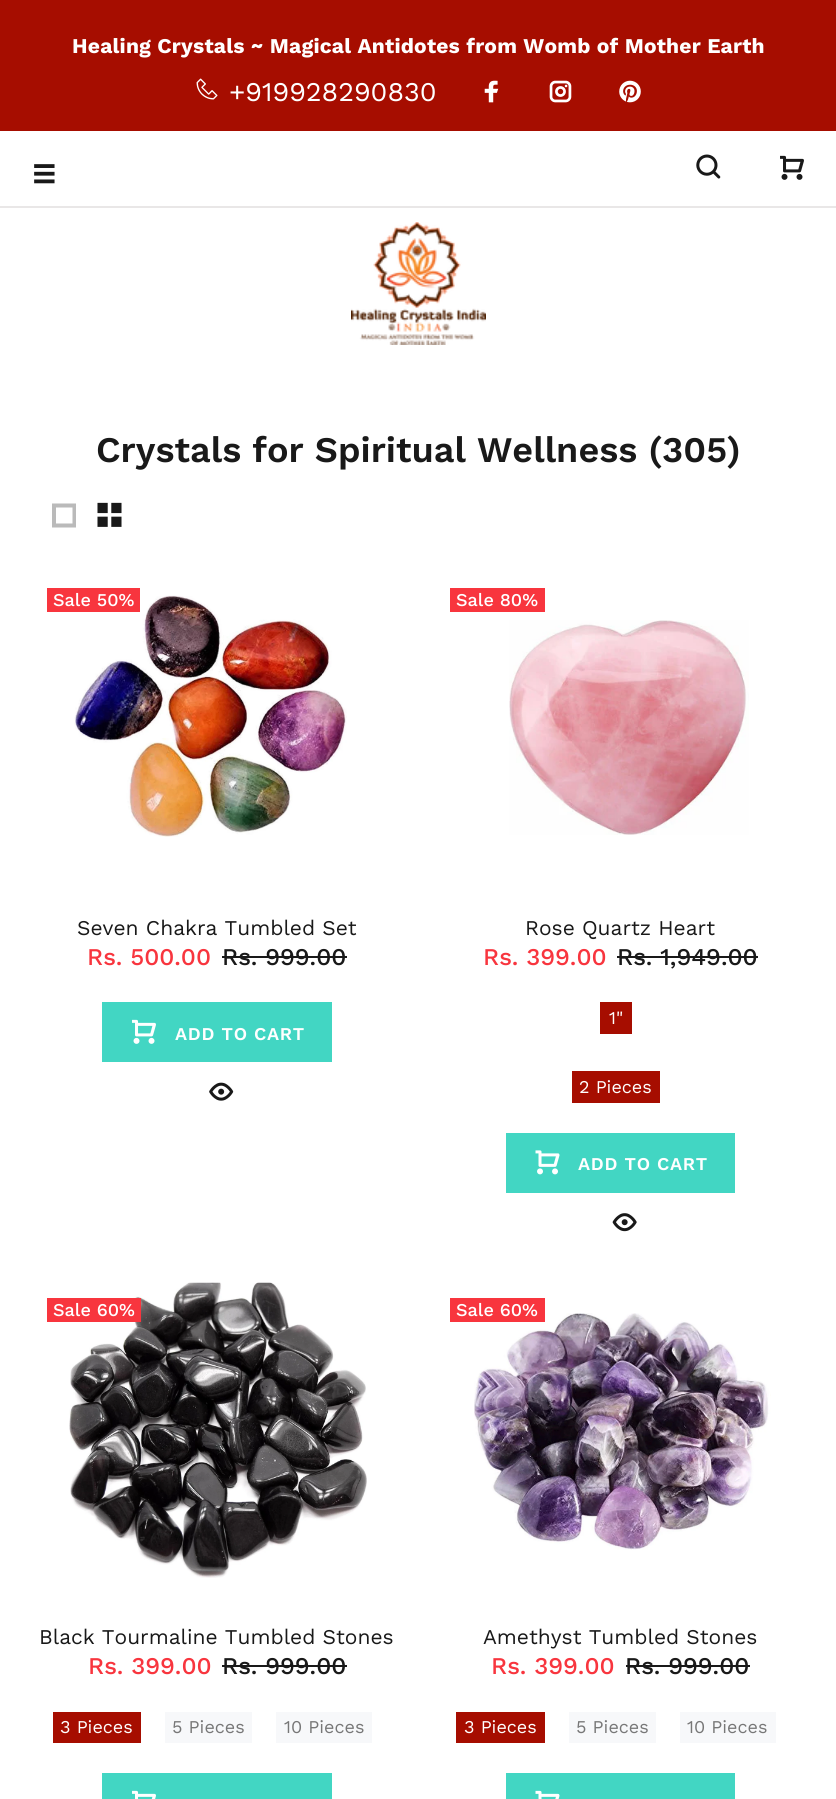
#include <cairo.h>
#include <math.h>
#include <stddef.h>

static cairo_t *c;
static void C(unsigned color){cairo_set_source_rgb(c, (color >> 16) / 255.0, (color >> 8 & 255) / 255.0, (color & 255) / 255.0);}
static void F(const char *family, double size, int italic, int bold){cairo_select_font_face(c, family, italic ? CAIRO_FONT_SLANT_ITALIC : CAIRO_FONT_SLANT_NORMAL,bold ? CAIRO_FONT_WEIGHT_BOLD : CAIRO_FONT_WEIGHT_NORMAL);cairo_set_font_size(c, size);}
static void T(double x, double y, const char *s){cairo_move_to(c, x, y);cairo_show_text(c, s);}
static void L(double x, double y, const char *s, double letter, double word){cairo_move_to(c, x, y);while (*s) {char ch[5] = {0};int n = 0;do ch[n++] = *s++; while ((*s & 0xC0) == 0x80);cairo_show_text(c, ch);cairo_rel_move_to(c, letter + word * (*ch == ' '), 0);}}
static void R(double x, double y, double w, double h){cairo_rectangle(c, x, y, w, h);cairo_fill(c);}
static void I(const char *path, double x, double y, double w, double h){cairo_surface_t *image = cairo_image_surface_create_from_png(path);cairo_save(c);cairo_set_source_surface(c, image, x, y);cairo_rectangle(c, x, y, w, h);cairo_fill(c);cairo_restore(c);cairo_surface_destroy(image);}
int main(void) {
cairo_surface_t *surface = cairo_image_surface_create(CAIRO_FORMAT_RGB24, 836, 1799);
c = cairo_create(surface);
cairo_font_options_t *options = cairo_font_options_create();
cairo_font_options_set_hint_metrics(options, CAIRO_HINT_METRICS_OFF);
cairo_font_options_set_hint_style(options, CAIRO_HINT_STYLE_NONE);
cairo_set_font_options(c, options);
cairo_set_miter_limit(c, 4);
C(0xffffff);
cairo_paint(c);
C(0xa60d00);
R(0,0,836,131);
F("Work Sans",21,0,1);
C(0xffffff);
L(72,53,"Healing Crystals ~ Magical Antidotes from Womb of Mother Earth",.2,0);
I("1.png",196,78,22,22);
F("Work Sans",27,0,0);
T(229,101,"+919928290830");
I("2.png",484,80,15,23);
I("3.png",549,80,23,23);
I("4.png",619,80,22,23);
I("5.png",34,164,21,20);
I("6.png",696,154,25,25);
I("7.png",780,155,24,25);
C(0xe9e7e7);
R(0,206,836,2);
I("8.png",351,222,135,123);
F("Work Sans SemiBold",36,0,0);
C(0x191919);
T(96,462,"Crystals for Spiritual Wellness (305)");
C(0xbababa);
cairo_new_path(c);
cairo_move_to(c,52,527.5);
cairo_line_to(c,52,503.5);
cairo_line_to(c,76,503.5);
cairo_line_to(c,76,527.5);
cairo_close_path(c);
cairo_move_to(c,56,523.5);
cairo_line_to(c,72.5,523.5);
cairo_line_to(c,72.5,507.5);
cairo_line_to(c,56,507.5);
cairo_close_path(c);
cairo_fill(c);
I("9.png",97,502,25,25);
I("10.png",74,595,273,242);
C(0xf8353e);
R(47,588,93,24);
F("Work Sans Medium",18,0,0);
C(0xffffff);
T(53,606,"Sale 50%");
F("Work Sans",21,0,0);
C(0x191919);
T(77,935,"Seven Chakra Tumbled Set");
F("Work Sans Medium",24,0,0);
C(0xf8353e);
T(87,965,"Rs. 500.00");
C(0x191919);
T(222,965,"Rs. 999.00");
R(222,956,125,2);
C(0x42d6c3);
R(102,1002,230,60);
I("11.png",132,1019,24,25);
F("Work Sans SemiBold",18,0,0);
C(0xffffff);
L(175,1040,"ADD TO CART",.75,0);
I("12.png",209,1082,25,19);
C(0xf8353e);
R(450,588,95,24);
F("Work Sans Medium",18,0,0);
C(0xffffff);
T(456,606,"Sale 80%");
I("13.png",509,620,240,215);
F("Work Sans",21,0,0);
C(0x191919);
T(525,935,"Rose Quartz Heart");
F("Work Sans Medium",24,0,0);
C(0xf8353e);
T(483,965,"Rs. 399.00");
C(0x191919);
T(617,965,"Rs. 1,949.00");
R(617,956,141,2);
C(0xa60d00);
R(600,1002,32,32);
F("Work Sans",18,0,0);
C(0xffffff);
T(609,1024,"1\"");
C(0xa60d00);
R(572,1071,88,32);
C(0xffffff);
T(579,1093,"2 Pieces");
C(0x42d6c3);
R(506,1133,229,60);
I("14.png",535,1150,25,25);
F("Work Sans SemiBold",18,0,0);
C(0xffffff);
L(578,1170,"ADD TO CART",.75,0);
I("15.png",612,1213,25,19);
I("16.png",69,1282,298,296);
C(0xf8353e);
R(47,1298,94,24);
F("Work Sans Medium",18,0,0);
C(0xffffff);
T(53,1316,"Sale 60%");
F("Work Sans",21,0,0);
C(0x191919);
T(39,1644,"Black Tourmaline Tumbled Stones");
F("Work Sans Medium",24,0,0);
C(0xf8353e);
T(88,1674,"Rs. 399.00");
C(0x191919);
T(222,1674,"Rs. 999.00");
R(222,1665,125,2);
C(0xa60d00);
R(53,1712,88,31);
F("Work Sans",18,0,0);
C(0xffffff);
T(60,1733,"3 Pieces");
C(0xf7f8fa);
R(165,1712,87,31);
C(0x777777);
T(172,1733,"5 Pieces");
C(0xf7f8fa);
R(276,1712,96,31);
C(0x777777);
T(284,1733,"10 Pieces");
C(0x42d6c3);
R(102,1773,230,26);
I("17.png",132,1790,24,9);
I("18.png",474,1313,297,237);
C(0xf8353e);
R(450,1298,95,24);
F("Work Sans Medium",18,0,0);
C(0xffffff);
T(456,1316,"Sale 60%");
F("Work Sans",21,0,0);
C(0x191919);
T(483,1644,"Amethyst Tumbled Stones");
F("Work Sans Medium",24,0,0);
C(0xf8353e);
T(491,1674,"Rs. 399.00");
C(0x191919);
T(625,1674,"Rs. 999.00");
R(626,1665,124,2);
C(0xa60d00);
R(456,1712,89,31);
F("Work Sans",18,0,0);
C(0xffffff);
T(464,1733,"3 Pieces");
C(0xf7f8fa);
R(569,1712,87,31);
C(0x777777);
T(576,1733,"5 Pieces");
C(0xf7f8fa);
R(680,1712,96,31);
C(0x777777);
T(687,1733,"10 Pieces");
C(0x42d6c3);
R(506,1773,229,26);
I("19.png",535,1790,25,9);
cairo_surface_write_to_png(surface, "o.png");
cairo_font_options_destroy(options);
cairo_destroy(c);
cairo_surface_destroy(surface);
return 0;
}
